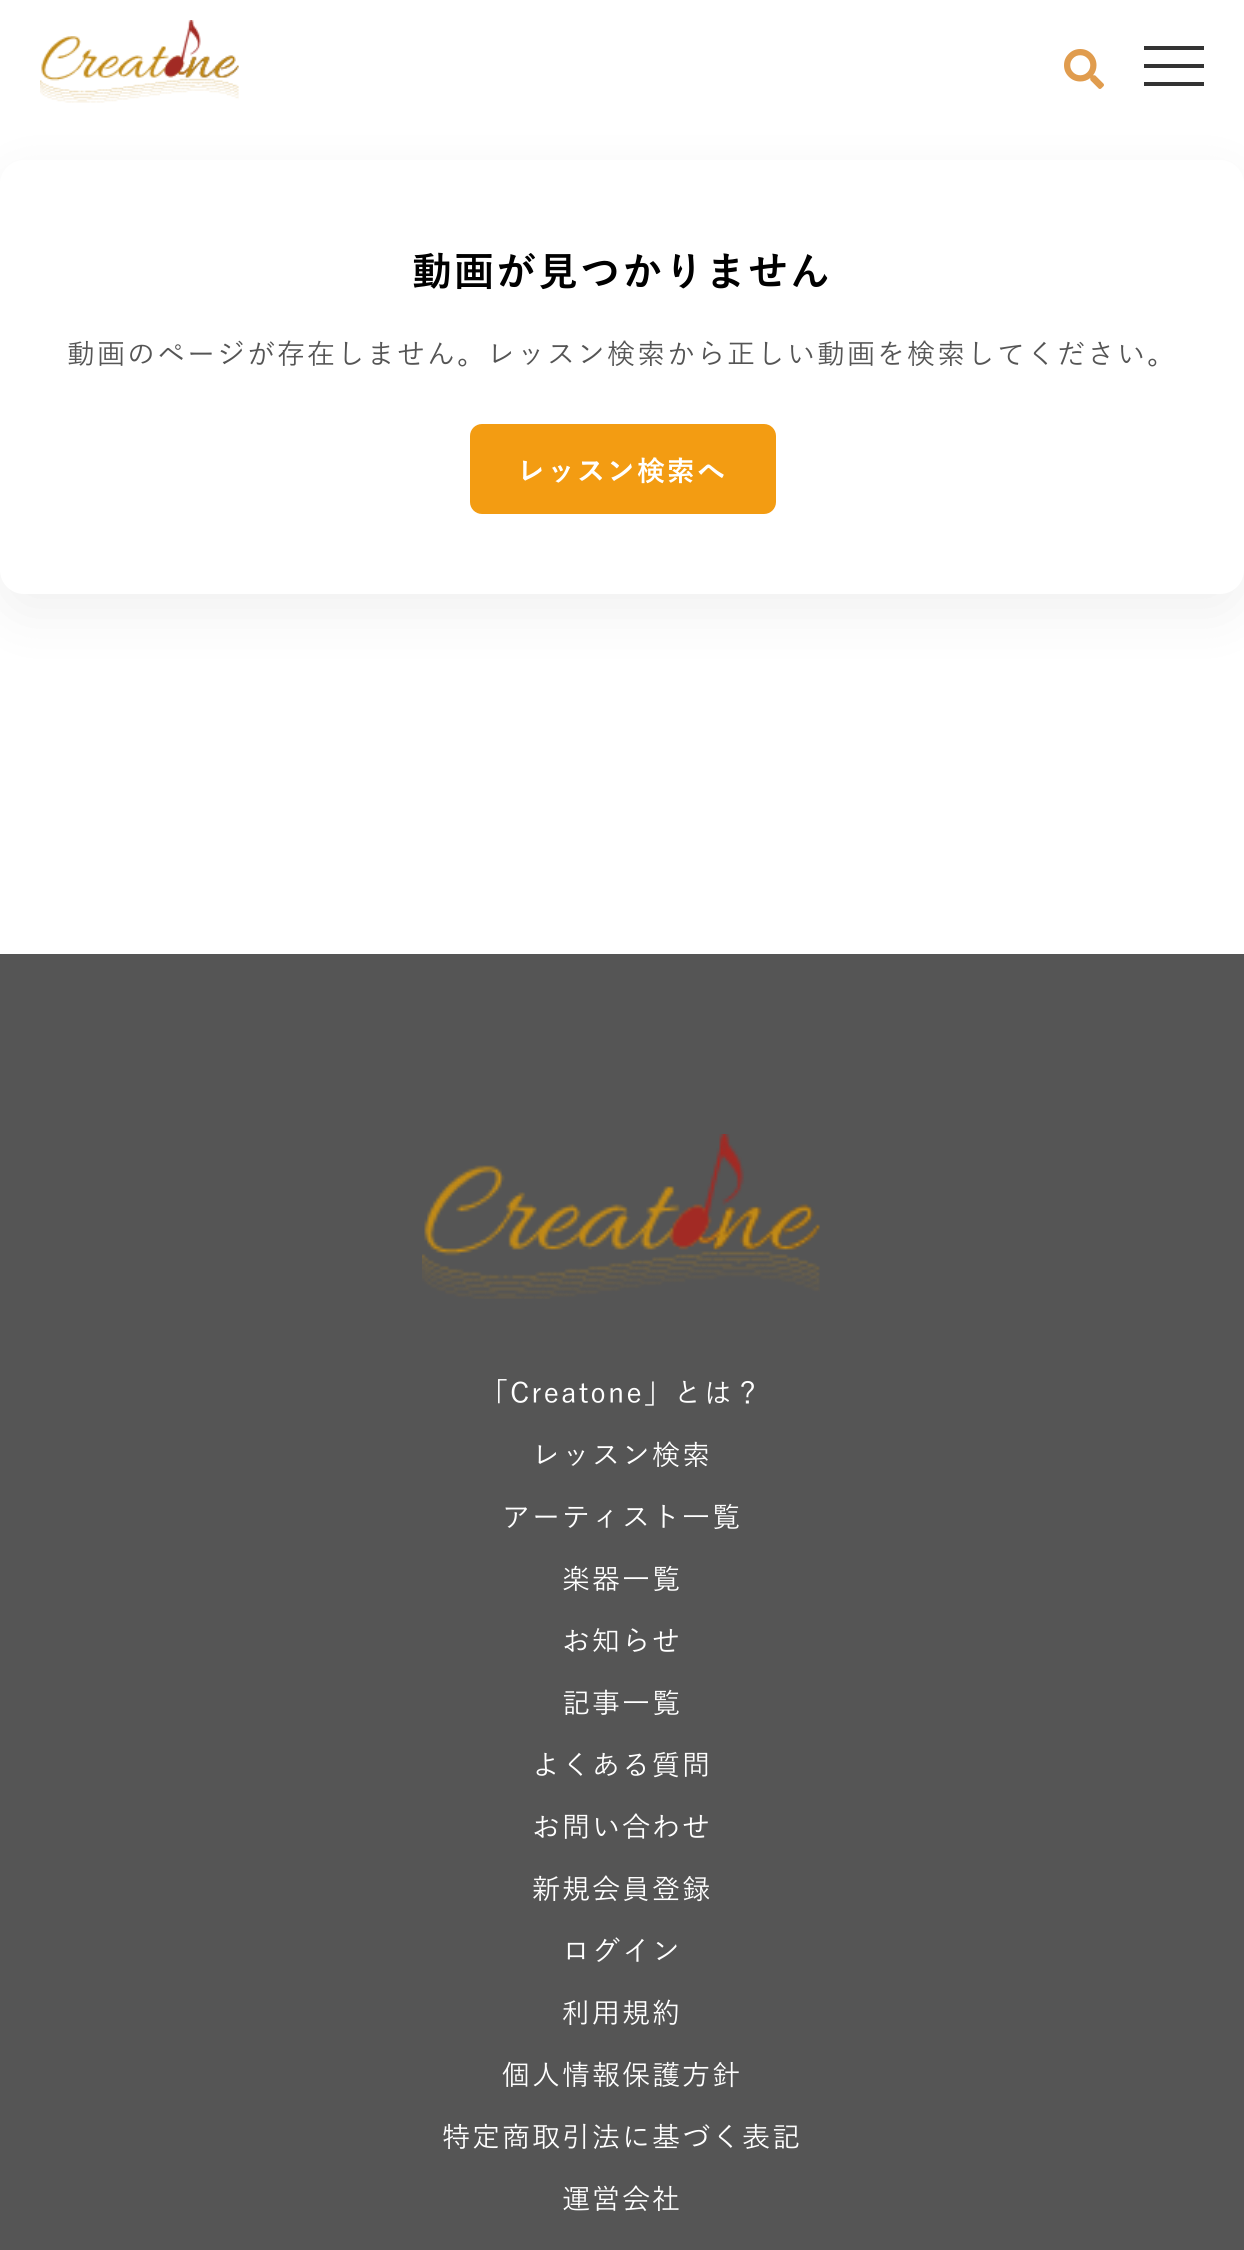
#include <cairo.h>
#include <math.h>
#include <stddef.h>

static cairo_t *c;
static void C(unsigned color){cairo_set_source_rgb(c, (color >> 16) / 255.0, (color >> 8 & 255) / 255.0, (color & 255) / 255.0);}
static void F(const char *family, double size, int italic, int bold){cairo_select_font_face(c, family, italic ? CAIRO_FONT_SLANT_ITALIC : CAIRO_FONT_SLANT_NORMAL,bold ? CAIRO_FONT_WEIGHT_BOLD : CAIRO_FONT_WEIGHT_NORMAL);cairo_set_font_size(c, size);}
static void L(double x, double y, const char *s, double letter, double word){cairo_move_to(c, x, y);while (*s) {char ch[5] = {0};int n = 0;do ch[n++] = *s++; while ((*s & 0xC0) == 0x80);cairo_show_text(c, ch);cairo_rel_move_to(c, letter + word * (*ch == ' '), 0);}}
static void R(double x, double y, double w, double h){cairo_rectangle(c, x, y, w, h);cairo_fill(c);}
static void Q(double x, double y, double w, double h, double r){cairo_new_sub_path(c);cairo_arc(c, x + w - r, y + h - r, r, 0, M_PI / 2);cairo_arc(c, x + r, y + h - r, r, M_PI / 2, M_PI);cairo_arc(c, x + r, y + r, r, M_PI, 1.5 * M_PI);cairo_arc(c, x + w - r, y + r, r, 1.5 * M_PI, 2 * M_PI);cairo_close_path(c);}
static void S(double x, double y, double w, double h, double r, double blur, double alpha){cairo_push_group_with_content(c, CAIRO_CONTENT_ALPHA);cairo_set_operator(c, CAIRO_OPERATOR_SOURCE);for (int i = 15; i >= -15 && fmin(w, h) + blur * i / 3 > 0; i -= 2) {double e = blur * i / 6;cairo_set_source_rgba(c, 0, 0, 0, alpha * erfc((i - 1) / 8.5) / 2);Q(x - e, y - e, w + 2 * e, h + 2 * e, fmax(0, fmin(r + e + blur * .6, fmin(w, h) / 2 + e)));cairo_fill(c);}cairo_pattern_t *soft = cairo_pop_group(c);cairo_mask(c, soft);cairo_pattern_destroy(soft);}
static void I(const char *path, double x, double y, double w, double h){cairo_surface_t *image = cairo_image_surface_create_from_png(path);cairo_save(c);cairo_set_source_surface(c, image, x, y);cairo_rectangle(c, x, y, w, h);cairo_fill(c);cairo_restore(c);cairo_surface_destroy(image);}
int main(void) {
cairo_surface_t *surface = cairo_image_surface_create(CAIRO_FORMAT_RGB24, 1244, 2250);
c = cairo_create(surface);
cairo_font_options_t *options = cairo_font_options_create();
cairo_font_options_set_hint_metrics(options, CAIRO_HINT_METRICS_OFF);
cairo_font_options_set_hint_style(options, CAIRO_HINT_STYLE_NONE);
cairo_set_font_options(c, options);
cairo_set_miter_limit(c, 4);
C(0xffffff);
cairo_paint(c);
C(0x000000);
S(0,180,1244,434,24,30,.06);
I("1.png",40,20,199,83);
I("2.png",1064,49,40,40);
C(0x333333);
R(1144,46,60,4);
R(1144,64,60,4);
R(1144,82,60,4);
C(0xffffff);
Q(0,160,1244,434,24);
cairo_fill(c);
F("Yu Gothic",40,0,1);
C(0x000000);
L(412,286,"動画が見つかりません",2,0);
F("Yu Gothic Medium",28,0,0);
C(0x555555);
L(67,364,"動画のページが存在しません。レッスン検索から正しい動画を検索してください。",2,0);
C(0xf39c12);
Q(470,424,306,90,12);
cairo_fill(c);
F("Yu Gothic",28,0,1);
C(0xffffff);
L(517,481,"レッスン検索へ",2,0);
C(0x555555);
R(0,954,1244,1296);
I("3.png",422,1134,398,165);
F("Yu Gothic Medium",28,0,0);
C(0xffffff);
L(480,1403,"「Creatone」とは？",2,0);
L(532,1465,"レッスン検索",2,0);
L(502,1527,"アーティスト一覧",2,0);
L(562,1589,"楽器一覧",2,0);
L(562,1651,"お知らせ",2,0);
L(562,1713,"記事一覧",2,0);
L(532,1775,"よくある質問",2,0);
L(532,1837,"お問い合わせ",2,0);
L(532,1899,"新規会員登録",2,0);
L(562,1961,"ログイン",2,0);
L(562,2023,"利用規約",2,0);
L(502,2085,"個人情報保護方針",2,0);
L(442,2147,"特定商取引法に基づく表記",2,0);
L(562,2209,"運営会社",2,0);
cairo_surface_write_to_png(surface, "o.png");
cairo_font_options_destroy(options);
cairo_destroy(c);
cairo_surface_destroy(surface);
return 0;
}
